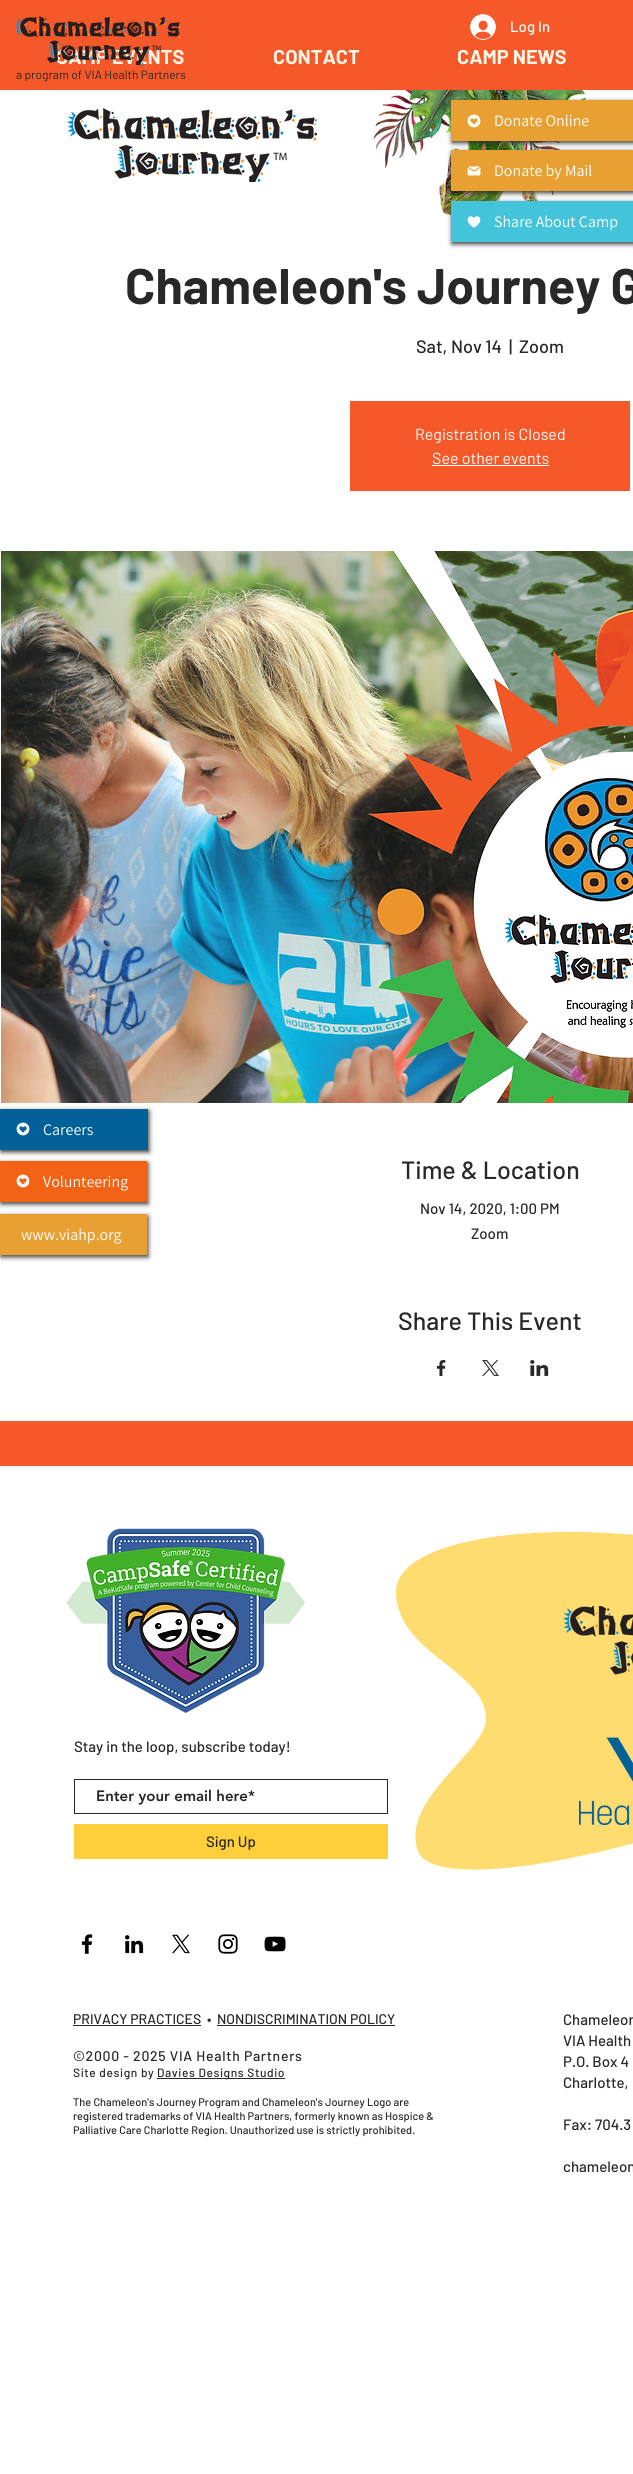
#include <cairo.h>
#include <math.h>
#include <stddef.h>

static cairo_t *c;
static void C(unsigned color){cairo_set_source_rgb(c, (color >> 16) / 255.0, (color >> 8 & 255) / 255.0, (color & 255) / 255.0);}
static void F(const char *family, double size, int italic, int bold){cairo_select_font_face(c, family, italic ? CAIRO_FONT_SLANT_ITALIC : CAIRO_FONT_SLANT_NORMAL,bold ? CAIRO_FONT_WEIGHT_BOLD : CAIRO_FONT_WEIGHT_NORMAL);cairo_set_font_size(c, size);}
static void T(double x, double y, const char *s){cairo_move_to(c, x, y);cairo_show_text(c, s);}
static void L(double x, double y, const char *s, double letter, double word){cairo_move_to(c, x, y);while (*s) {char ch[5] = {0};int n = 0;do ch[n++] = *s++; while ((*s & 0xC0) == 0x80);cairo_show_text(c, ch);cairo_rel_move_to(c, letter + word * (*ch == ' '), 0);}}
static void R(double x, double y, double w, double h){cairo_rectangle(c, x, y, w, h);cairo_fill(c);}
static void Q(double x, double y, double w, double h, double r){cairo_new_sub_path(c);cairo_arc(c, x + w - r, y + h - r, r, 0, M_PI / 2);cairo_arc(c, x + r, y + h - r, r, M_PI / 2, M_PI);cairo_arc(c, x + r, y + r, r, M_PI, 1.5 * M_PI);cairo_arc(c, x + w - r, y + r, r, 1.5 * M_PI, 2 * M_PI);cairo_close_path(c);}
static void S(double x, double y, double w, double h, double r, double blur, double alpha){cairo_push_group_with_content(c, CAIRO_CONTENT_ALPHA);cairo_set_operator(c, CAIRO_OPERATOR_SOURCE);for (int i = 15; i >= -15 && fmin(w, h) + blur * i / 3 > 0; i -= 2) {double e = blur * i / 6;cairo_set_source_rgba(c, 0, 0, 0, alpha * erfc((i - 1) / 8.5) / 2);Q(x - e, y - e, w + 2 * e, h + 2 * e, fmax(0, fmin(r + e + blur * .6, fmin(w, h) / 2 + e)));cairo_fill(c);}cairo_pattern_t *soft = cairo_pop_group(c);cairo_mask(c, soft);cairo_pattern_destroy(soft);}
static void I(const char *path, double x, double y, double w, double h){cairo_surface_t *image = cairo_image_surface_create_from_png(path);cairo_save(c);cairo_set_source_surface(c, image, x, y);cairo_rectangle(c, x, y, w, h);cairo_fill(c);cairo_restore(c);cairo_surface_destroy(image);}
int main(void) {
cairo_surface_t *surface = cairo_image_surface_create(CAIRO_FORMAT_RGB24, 633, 2474);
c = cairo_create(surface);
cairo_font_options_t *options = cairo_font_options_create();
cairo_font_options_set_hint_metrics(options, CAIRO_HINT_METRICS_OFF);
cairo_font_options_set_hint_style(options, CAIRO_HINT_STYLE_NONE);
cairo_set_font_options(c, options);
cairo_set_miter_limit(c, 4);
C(0xffffff);
cairo_paint(c);
C(0xf5592a);
R(0,0,633,90);
I("1.png",470,14,26,26);
F("Barlow Medium",15,0,0);
C(0xffffff);
T(510,32,"Log In");
I("9.png",373,90,213,126);
C(0x303131);
S(452,152,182,41,0,2.5,1);
C(0xe8a033);
R(451,150,182,41);
C(0x303131);
S(452,102,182,41,0,2.5,1);
C(0xe8a033);
R(451,100,182,41);
I("2.png",467,114,14,14);
F("Assistant",16,0,0);
C(0xffffff);
T(494,126,"Donate Online");
I("3.png",467,166,14,10);
T(494,176,"Donate by Mail");
C(0x303131);
S(452,203,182,41,0,2.5,1);
C(0x44c4db);
R(451,201,182,41);
I("4.png",467,216,14,12);
C(0xffffff);
T(494,227,"Share About Camp");
F("Barlow",20,0,1);
C(0xfff7e8);
T(56,64,"CAMP EVENTS");
T(273,64,"CONTACT");
T(457,64,"CAMP NEWS");
I("5.png",16,16,164,49);
F("Barlow",12,0,0);
C(0x282828);
T(16,79,"a program of VIA Health Partners");
I("10.png",1,551,632,552);
C(0x303131);
S(1,1111,148,41,0,2.5,1);
C(0x006098);
R(0,1109,148,41);
I("6.png",16,1122,14,14);
F("Assistant",16,0,0);
C(0xffffff);
T(43,1135,"Careers");
C(0x303131);
S(1,1163,147,41,0,2.5,1);
C(0xf26316);
R(0,1161,147,41);
I("7.png",16,1174,14,14);
C(0xffffff);
T(43,1187,"Volunteering");
C(0x303131);
S(1,1216,147,41,0,2.5,1);
C(0xe8a033);
R(0,1214,147,41);
C(0xffffff);
T(21,1240,"www.viahp.org");
I("8.png",67,108,250,74);
F("Barlow",50,0,1);
C(0x282828);
T(125,304,"Chameleon's Journey G");
F("Barlow Medium",18,0,0);
T(416,353,"Sat, Nov 14");
T(509,353,"|");
T(519,353,"Zoom");
C(0xf5592a);
R(350,401,280,90);
F("Barlow",16,0,0);
C(0xffffff);
T(415,440,"Registration is Closed");
T(432,464,"See other events");
R(432,465,117,1);
F("Barlow Medium",25,0,0);
C(0x282828);
T(401,1179,"Time & Location");
F("Barlow Medium",15,0,0);
T(420,1214,"Nov 14, 2020, 1:00 PM");
T(471,1239,"Zoom");
F("Barlow Medium",25,0,0);
T(398,1330,"Share This Event");
I("11.png",437,1360,9,16);
I("12.png",482,1360,17,16);
I("13.png",530,1360,19,16);
C(0xf5592a);
R(0,1421,633,45);
I("14.png",66,1528,240,185);
C(0xfedc70);
cairo_new_path(c);
cairo_move_to(c,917,1689);
cairo_curve_to(c,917,1782,444,1920,418,1851);
cairo_curve_to(c,399,1799,489,1750,486,1717);
cairo_curve_to(c,483,1669,398,1654,396,1593);
cairo_curve_to(c,393,1489,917,1516,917,1689);
cairo_close_path(c);
cairo_fill(c);
I("15.png",563,1606,70,69);
F("Barlow Medium",15,0,0);
C(0x282828);
T(74,1752,"Stay in the loop, subscribe today!");
cairo_rectangle(c,74.5,1779.5,313,34);
cairo_set_line_width(c,1);
cairo_stroke(c);
F("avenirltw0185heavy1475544 Black",15,0,0);
T(96,1801,"Enter your email here*");
C(0xfecf3b);
R(74,1824,314,35);
F("Barlow Medium",15,0,0);
C(0x282828);
T(206,1847,"Sign Up");
I("16.png",579,1737,54,88);
I("17.png",81,1934,12,20);
I("18.png",124,1935,20,19);
I("19.png",172,1934,18,20);
I("20.png",218,1934,20,20);
I("21.png",264,1936,22,16);
F("Barlow Medium",14,0,0);
T(73,2024,"PRIVACY PRACTICES");
R(73,2025,128,1);
T(207,2024,"•");
T(217,2024,"NONDISCRIMINATION POLICY");
R(217,2025,178,1);
L(73,2061,"©2000 - 2025 VIA Health Partners",.7,0);
F("Barlow Medium",12,0,0);
L(73,2077,"Site design by",.6,0);
R(157,2078,128,1);
L(157,2077,"Davies Designs Studio",.6,0);
F("Barlow Medium",11,0,0);
T(73,2106,"The Chameleon's Journey Program and Chameleon's Journey Logo are");
T(73,2120,"registered trademarks of VIA Health Partners, formerly known as Hospice &");
T(73,2134,"Palliative Care Charlotte Region. Unauthorized use is strictly prohibited.");
F("Barlow Medium",15,0,0);
T(563,2025,"Chameleon");
T(563,2046,"VIA Health");
T(563,2067,"P.O. Box 4");
T(563,2088,"Charlotte,");
T(563,2130,"Fax: 704.3");
T(563,2172,"chameleon");
cairo_surface_write_to_png(surface, "o.png");
cairo_font_options_destroy(options);
cairo_destroy(c);
cairo_surface_destroy(surface);
return 0;
}
